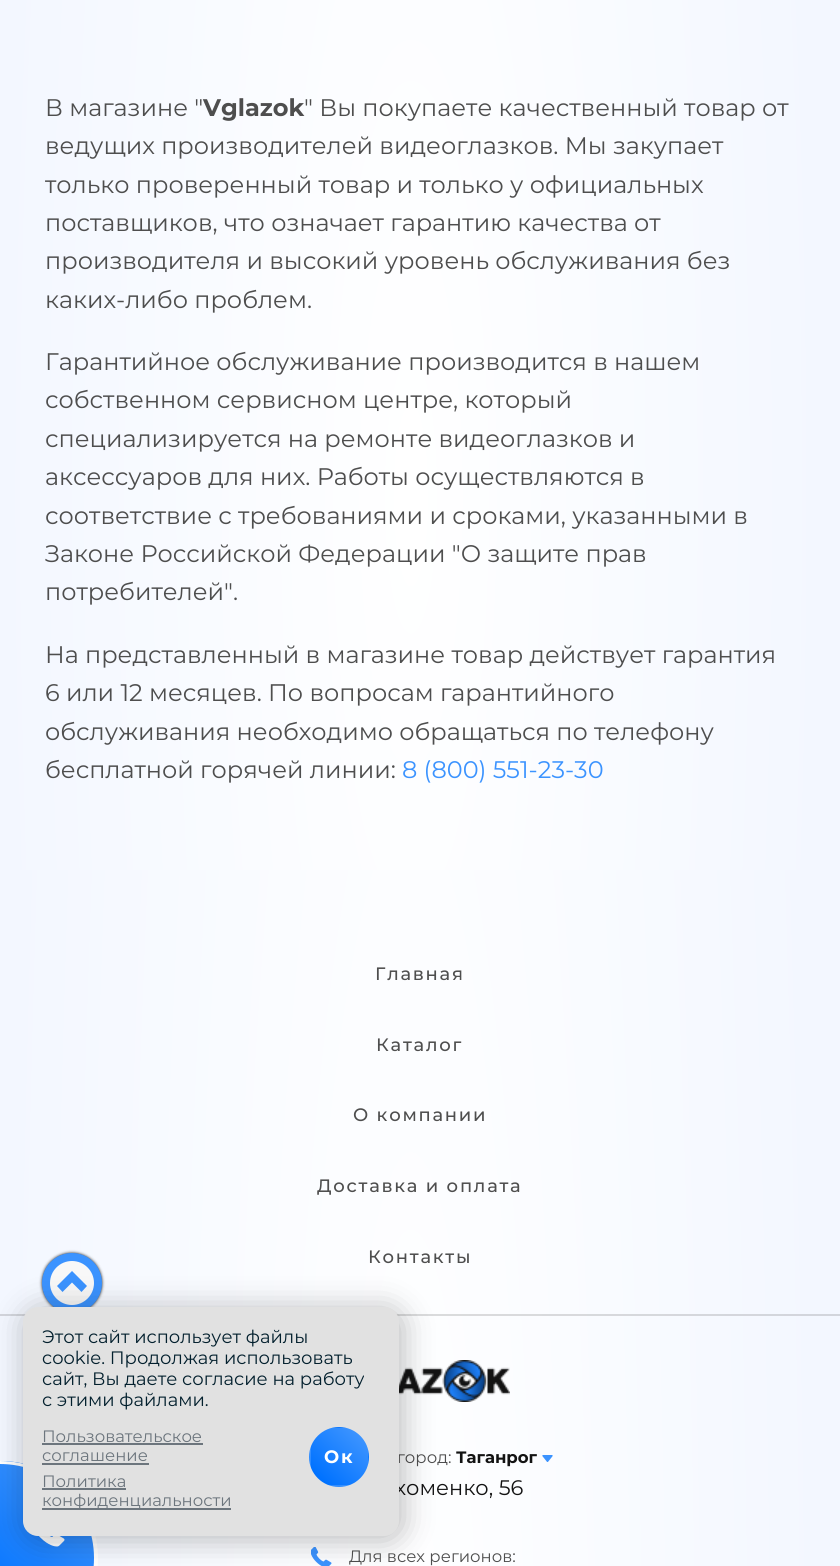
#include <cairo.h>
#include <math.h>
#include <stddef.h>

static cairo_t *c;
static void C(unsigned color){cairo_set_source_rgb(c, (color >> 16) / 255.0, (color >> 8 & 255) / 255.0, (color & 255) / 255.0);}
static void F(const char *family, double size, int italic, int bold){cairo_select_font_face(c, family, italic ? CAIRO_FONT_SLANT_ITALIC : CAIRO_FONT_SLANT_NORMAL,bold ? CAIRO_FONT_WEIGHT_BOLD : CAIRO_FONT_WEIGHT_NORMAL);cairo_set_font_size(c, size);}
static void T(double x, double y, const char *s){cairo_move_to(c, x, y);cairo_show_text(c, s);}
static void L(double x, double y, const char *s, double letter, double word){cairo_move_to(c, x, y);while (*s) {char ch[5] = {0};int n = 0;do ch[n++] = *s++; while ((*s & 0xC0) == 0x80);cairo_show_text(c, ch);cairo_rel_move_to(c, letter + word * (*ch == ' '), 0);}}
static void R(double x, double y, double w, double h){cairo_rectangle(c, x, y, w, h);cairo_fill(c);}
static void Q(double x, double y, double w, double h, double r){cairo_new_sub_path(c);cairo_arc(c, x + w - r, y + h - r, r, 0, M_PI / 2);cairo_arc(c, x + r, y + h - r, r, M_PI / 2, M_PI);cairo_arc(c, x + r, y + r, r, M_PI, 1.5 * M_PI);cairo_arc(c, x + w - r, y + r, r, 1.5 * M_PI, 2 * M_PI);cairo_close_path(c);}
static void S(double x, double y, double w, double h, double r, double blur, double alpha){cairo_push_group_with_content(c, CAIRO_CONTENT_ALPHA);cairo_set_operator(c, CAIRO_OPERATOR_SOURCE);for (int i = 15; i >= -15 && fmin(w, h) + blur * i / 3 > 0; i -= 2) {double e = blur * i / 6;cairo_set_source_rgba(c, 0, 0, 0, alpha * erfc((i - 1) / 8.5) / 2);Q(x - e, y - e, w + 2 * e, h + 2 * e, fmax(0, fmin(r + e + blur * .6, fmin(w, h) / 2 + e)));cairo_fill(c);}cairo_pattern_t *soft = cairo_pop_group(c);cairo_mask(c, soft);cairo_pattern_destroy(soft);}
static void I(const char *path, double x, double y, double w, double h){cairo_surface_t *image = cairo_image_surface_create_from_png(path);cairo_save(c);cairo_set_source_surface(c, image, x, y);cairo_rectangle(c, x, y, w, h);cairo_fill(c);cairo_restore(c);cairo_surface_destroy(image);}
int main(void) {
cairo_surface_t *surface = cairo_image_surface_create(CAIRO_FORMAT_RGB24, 840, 1566);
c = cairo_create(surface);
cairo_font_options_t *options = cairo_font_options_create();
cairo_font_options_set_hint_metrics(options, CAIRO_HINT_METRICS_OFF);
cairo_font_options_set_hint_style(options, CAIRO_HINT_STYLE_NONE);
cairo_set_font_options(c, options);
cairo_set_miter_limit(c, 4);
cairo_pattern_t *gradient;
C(0xffffff);
cairo_paint(c);
gradient = cairo_pattern_create_radial(0,0,0,0,0,1);
cairo_pattern_set_matrix(gradient, &(cairo_matrix_t){1.0 / 411, 0, 0, 1.0 / 2207, -1.0 * 411 / 411, -1.0 * 496 / 2207});
cairo_pattern_add_color_stop_rgba(gradient,0,1,1,1,1);
cairo_pattern_add_color_stop_rgba(gradient,1,0.953,0.969,1,1);
cairo_set_source(c,gradient);
cairo_pattern_destroy(gradient);
R(0,0,840,870);
F("Montserrat",24,0,0);
C(0x4e4e4e);
T(45,116,"В магазине \"");
F("Montserrat",24,0,1);
T(203,116,"Vglazok");
F("Montserrat",24,0,0);
T(304,116,"\" Вы покупаете качественный товар от");
T(45,154,"ведущих производителей видеоглазков. Мы закупает");
T(45,193,"только проверенный товар и только у официальных");
T(45,231,"поставщиков, что означает гарантию качества от");
T(45,269,"производителя и высокий уровень обслуживания без");
T(45,308,"каких-либо проблем.");
T(45,370,"Гарантийное обслуживание производится в нашем");
T(45,408,"собственном сервисном центре, который");
T(45,447,"специализируется на ремонте видеоглазков и");
T(45,485,"аксессуаров для них. Работы осуществляются в");
T(45,524,"соответствие с требованиями и сроками, указанными в");
T(45,562,"Законе Российской Федерации \"О защите прав");
T(45,600,"потребителей\".");
T(45,663,"На представленный в магазине товар действует гарантия");
T(45,701,"6 или 12 месяцев. По вопросам гарантийного");
T(45,740,"обслуживания необходимо обращаться по телефону");
T(45,778,"бесплатной горячей линии:");
C(0x3b93ff);
T(402,778,"8 (800) 551-23-30");
gradient = cairo_pattern_create_radial(0,0,0,0,0,1);
cairo_pattern_set_matrix(gradient, &(cairo_matrix_t){1.0 / 411, 0, 0, 1.0 / 3993, -1.0 * 411 / 411, -1.0 * 1987 / 3993});
cairo_pattern_add_color_stop_rgba(gradient,0,1,1,1,1);
cairo_pattern_add_color_stop_rgba(gradient,1,0.953,0.969,1,1);
cairo_set_source(c,gradient);
cairo_pattern_destroy(gradient);
R(0,870,840,696);
gradient = cairo_pattern_create_radial(0,0,0,0,0,1);
cairo_pattern_set_matrix(gradient, &(cairo_matrix_t){1.0 / 411, 0, 0, 1.0 / 3993, -1.0 * 411 / 411, -1.0 * 1987 / 3993});
cairo_pattern_add_color_stop_rgba(gradient,0,0.863,0.863,0.863,1);
cairo_pattern_add_color_stop_rgba(gradient,1,0.824,0.835,0.863,1);
cairo_set_source(c,gradient);
cairo_pattern_destroy(gradient);
R(0,1314,840,2);
C(0x1d1d1d);
S(42,1253,60,60,30,1.5,1);
C(0xf8f8f8);
cairo_arc(c,72,1283,26,0,2 * M_PI);
cairo_fill_preserve(c);
C(0x3b93ff);
cairo_set_line_width(c,8);
cairo_stroke(c);
cairo_new_path(c);
cairo_move_to(c,72,1271);
cairo_line_to(c,57,1286);
cairo_line_to(c,62.5,1292);
cairo_line_to(c,72,1282.5);
cairo_line_to(c,81.5,1292);
cairo_line_to(c,87,1286);
cairo_close_path(c);
cairo_fill(c);
F("Montserrat Medium",18,0,0);
C(0x4e4e4e);
L(375,980,"Главная",1.75,0);
L(376,1051,"Каталог",1.75,0);
L(353,1121,"О компании",1.75,0);
L(317,1192,"Доставка и оплата",1.75,0);
L(368,1263,"Контакты",1.75,0);
I("1.png",399,1360,111,42);
F("Montserrat",16.5,0,0);
T(397,1463,"город:");
F("Montserrat",16.5,0,1);
C(0x131313);
T(456,1463,"Таганрог");
I("2.png",542,1455,11,7);
F("Montserrat",21,0,0);
T(395,1495,"хоменко, 56");
I("3.png",311,1547,21,19);
F("Montserrat",16.5,0,0);
C(0x4e4e4e);
T(349,1562,"Для всех регионов:");
cairo_save(c);
cairo_new_path(c);
cairo_move_to(c,0,1461);
cairo_line_to(c,.5,1461);
cairo_curve_to(c,54.5,1461,98,1504.5,98,1558.5);
cairo_curve_to(c,98,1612.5,54.5,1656,.5,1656);
cairo_line_to(c,0,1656);
cairo_close_path(c);
cairo_clip(c);
gradient = cairo_pattern_create_linear(117,1296,-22,1443);
cairo_pattern_add_color_stop_rgba(gradient,.15,0.231,0.576,1,1);
cairo_pattern_add_color_stop_rgba(gradient,.85,0,0.447,1,1);
cairo_set_source(c,gradient);
cairo_pattern_destroy(gradient);
R(0,1461,23,3);
cairo_restore(c);
gradient = cairo_pattern_create_linear(117,1485,-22,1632);
cairo_pattern_add_color_stop_rgba(gradient,.15,0.231,0.576,1,1);
cairo_pattern_add_color_stop_rgba(gradient,.85,0,0.447,1,1);
cairo_set_source(c,gradient);
cairo_pattern_destroy(gradient);
R(0,1464,94,102);
C(0xffffff);
cairo_set_fill_rule(c,CAIRO_FILL_RULE_EVEN_ODD);
cairo_new_path(c);
cairo_move_to(c,0,1461);
cairo_curve_to(c,54,1461,98,1505,98,1558);
cairo_curve_to(c,98,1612,54,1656,0,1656);
cairo_close_path(c);
cairo_move_to(c,0,1464);
cairo_curve_to(c,52,1464,94,1506,94,1558);
cairo_curve_to(c,94,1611,52,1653,0,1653);
cairo_close_path(c);
cairo_fill(c);
I("4.png",39,1536,26,11);
C(0x000000);
S(24,1308,380,233,17,15,.25);
C(0xe1e1e1);
Q(23,1307,376,229,15);
cairo_fill(c);
F("Montserrat",18,0,0);
C(0x03202e);
T(42,1343,"Этот сайт использует файлы");
T(42,1364,"cookie. Продолжая использовать");
T(42,1385,"сайт, Вы даете согласие на работу");
T(42,1406,"с этими файлами.");
F("Montserrat",16.5,0,0);
C(0x6c757d);
T(42,1442,"Пользовательское");
R(42,1443,161,2);
T(42,1461,"соглашение");
R(42,1463,107,2);
T(42,1487,"Политика");
R(42,1488,84,2);
R(42,1508,189,2);
T(42,1506,"конфиденциальности");
cairo_save(c);
cairo_set_fill_rule(c,CAIRO_FILL_RULE_WINDING);
Q(309,1427,60,60,30);
cairo_clip(c);
gradient = cairo_pattern_create_linear(367,1370,311,1429);
cairo_pattern_add_color_stop_rgba(gradient,.15,0.231,0.576,1,1);
cairo_pattern_add_color_stop_rgba(gradient,.85,0,0.447,1,1);
cairo_set_source(c,gradient);
cairo_pattern_destroy(gradient);
R(331,1427,16,1);
gradient = cairo_pattern_create_linear(310,1427,254,1486);
cairo_pattern_add_color_stop_rgba(gradient,.15,0.231,0.576,1,1);
cairo_pattern_add_color_stop_rgba(gradient,.85,0,0.447,1,1);
cairo_set_source(c,gradient);
cairo_pattern_destroy(gradient);
R(309,1446,2,22);
gradient = cairo_pattern_create_linear(367,1427,311,1486);
cairo_pattern_add_color_stop_rgba(gradient,.15,0.231,0.576,1,1);
cairo_pattern_add_color_stop_rgba(gradient,.85,0,0.447,1,1);
cairo_set_source(c,gradient);
cairo_pattern_destroy(gradient);
R(311,1428,57,57);
gradient = cairo_pattern_create_linear(424,1427,368,1486);
cairo_pattern_add_color_stop_rgba(gradient,.15,0.231,0.576,1,1);
cairo_pattern_add_color_stop_rgba(gradient,.85,0,0.447,1,1);
cairo_set_source(c,gradient);
cairo_pattern_destroy(gradient);
R(368,1449,1,16);
gradient = cairo_pattern_create_linear(367,1484,311,1543);
cairo_pattern_add_color_stop_rgba(gradient,.15,0.231,0.576,1,1);
cairo_pattern_add_color_stop_rgba(gradient,.85,0,0.447,1,1);
cairo_set_source(c,gradient);
cairo_pattern_destroy(gradient);
R(328,1485,22,2);
cairo_restore(c);
F("Montserrat",18,0,1);
C(0xffffff);
L(324,1463,"Ок",1.75,0);
cairo_surface_write_to_png(surface, "o.png");
cairo_font_options_destroy(options);
cairo_destroy(c);
cairo_surface_destroy(surface);
return 0;
}
